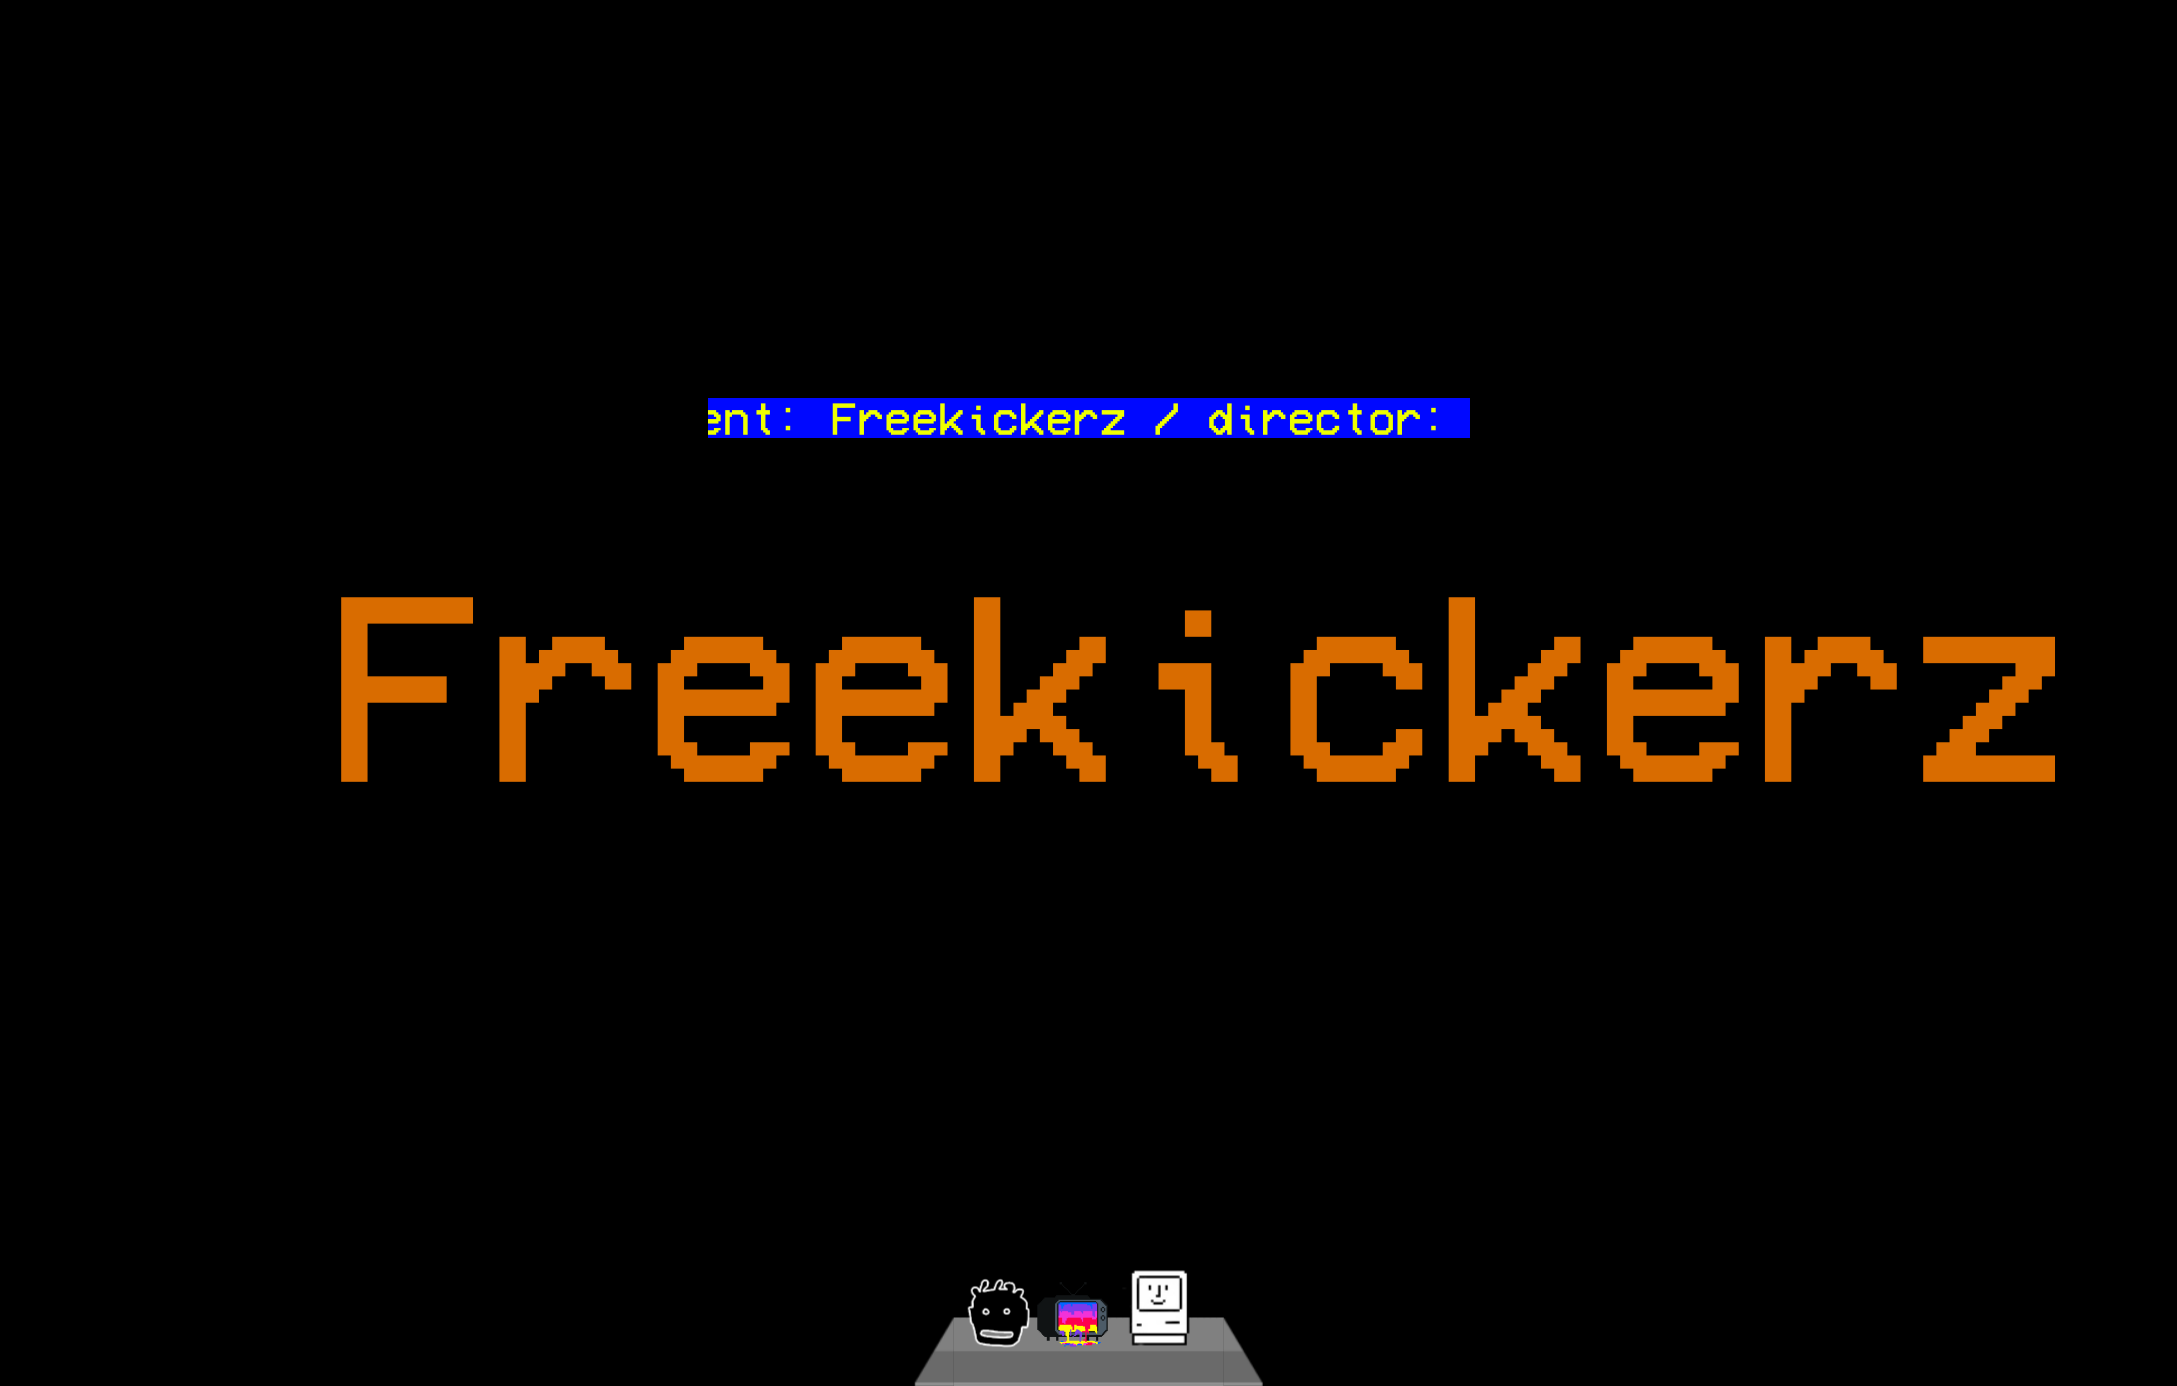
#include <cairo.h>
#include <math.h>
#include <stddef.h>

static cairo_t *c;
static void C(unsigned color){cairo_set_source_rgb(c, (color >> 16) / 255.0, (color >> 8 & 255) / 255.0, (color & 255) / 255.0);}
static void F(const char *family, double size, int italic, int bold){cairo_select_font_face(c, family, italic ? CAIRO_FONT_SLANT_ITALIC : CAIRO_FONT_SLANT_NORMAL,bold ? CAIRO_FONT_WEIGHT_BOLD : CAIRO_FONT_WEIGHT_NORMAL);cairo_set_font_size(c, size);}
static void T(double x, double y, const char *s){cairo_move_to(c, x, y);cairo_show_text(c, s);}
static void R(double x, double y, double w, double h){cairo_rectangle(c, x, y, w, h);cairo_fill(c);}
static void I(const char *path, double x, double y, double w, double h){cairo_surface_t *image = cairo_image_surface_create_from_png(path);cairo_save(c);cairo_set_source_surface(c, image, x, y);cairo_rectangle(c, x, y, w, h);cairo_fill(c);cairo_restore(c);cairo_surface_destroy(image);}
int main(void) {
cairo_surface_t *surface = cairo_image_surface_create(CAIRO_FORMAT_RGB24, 2177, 1386);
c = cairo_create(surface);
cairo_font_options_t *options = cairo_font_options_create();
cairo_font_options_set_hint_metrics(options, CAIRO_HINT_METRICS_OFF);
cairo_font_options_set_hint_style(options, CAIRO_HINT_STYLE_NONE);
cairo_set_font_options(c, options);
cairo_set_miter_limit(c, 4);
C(0x000000);
cairo_paint(c);
C(0x0008ff);
R(708,398,762,40);
cairo_save(c);
cairo_rectangle(c,708,374,762,87);
cairo_clip(c);
F("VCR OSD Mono",45.9,0,0);
C(0xeeff00);
T(696,437,"ent: Freekickerz / director:");
cairo_restore(c);
I("1.png",953,1317,271,69);
I("2.png",914,1317,40,69);
I("3.png",967,1278,63,70);
I("4.png",1037,1282,71,65);
I("5.png",1122,1270,68,76);
I("6.png",1223,1318,40,68);
F("VCR OSD Mono",270,0,0);
C(0xd96c00);
T(328,795,"Freekickerz");
cairo_surface_write_to_png(surface, "o.png");
cairo_font_options_destroy(options);
cairo_destroy(c);
cairo_surface_destroy(surface);
return 0;
}
